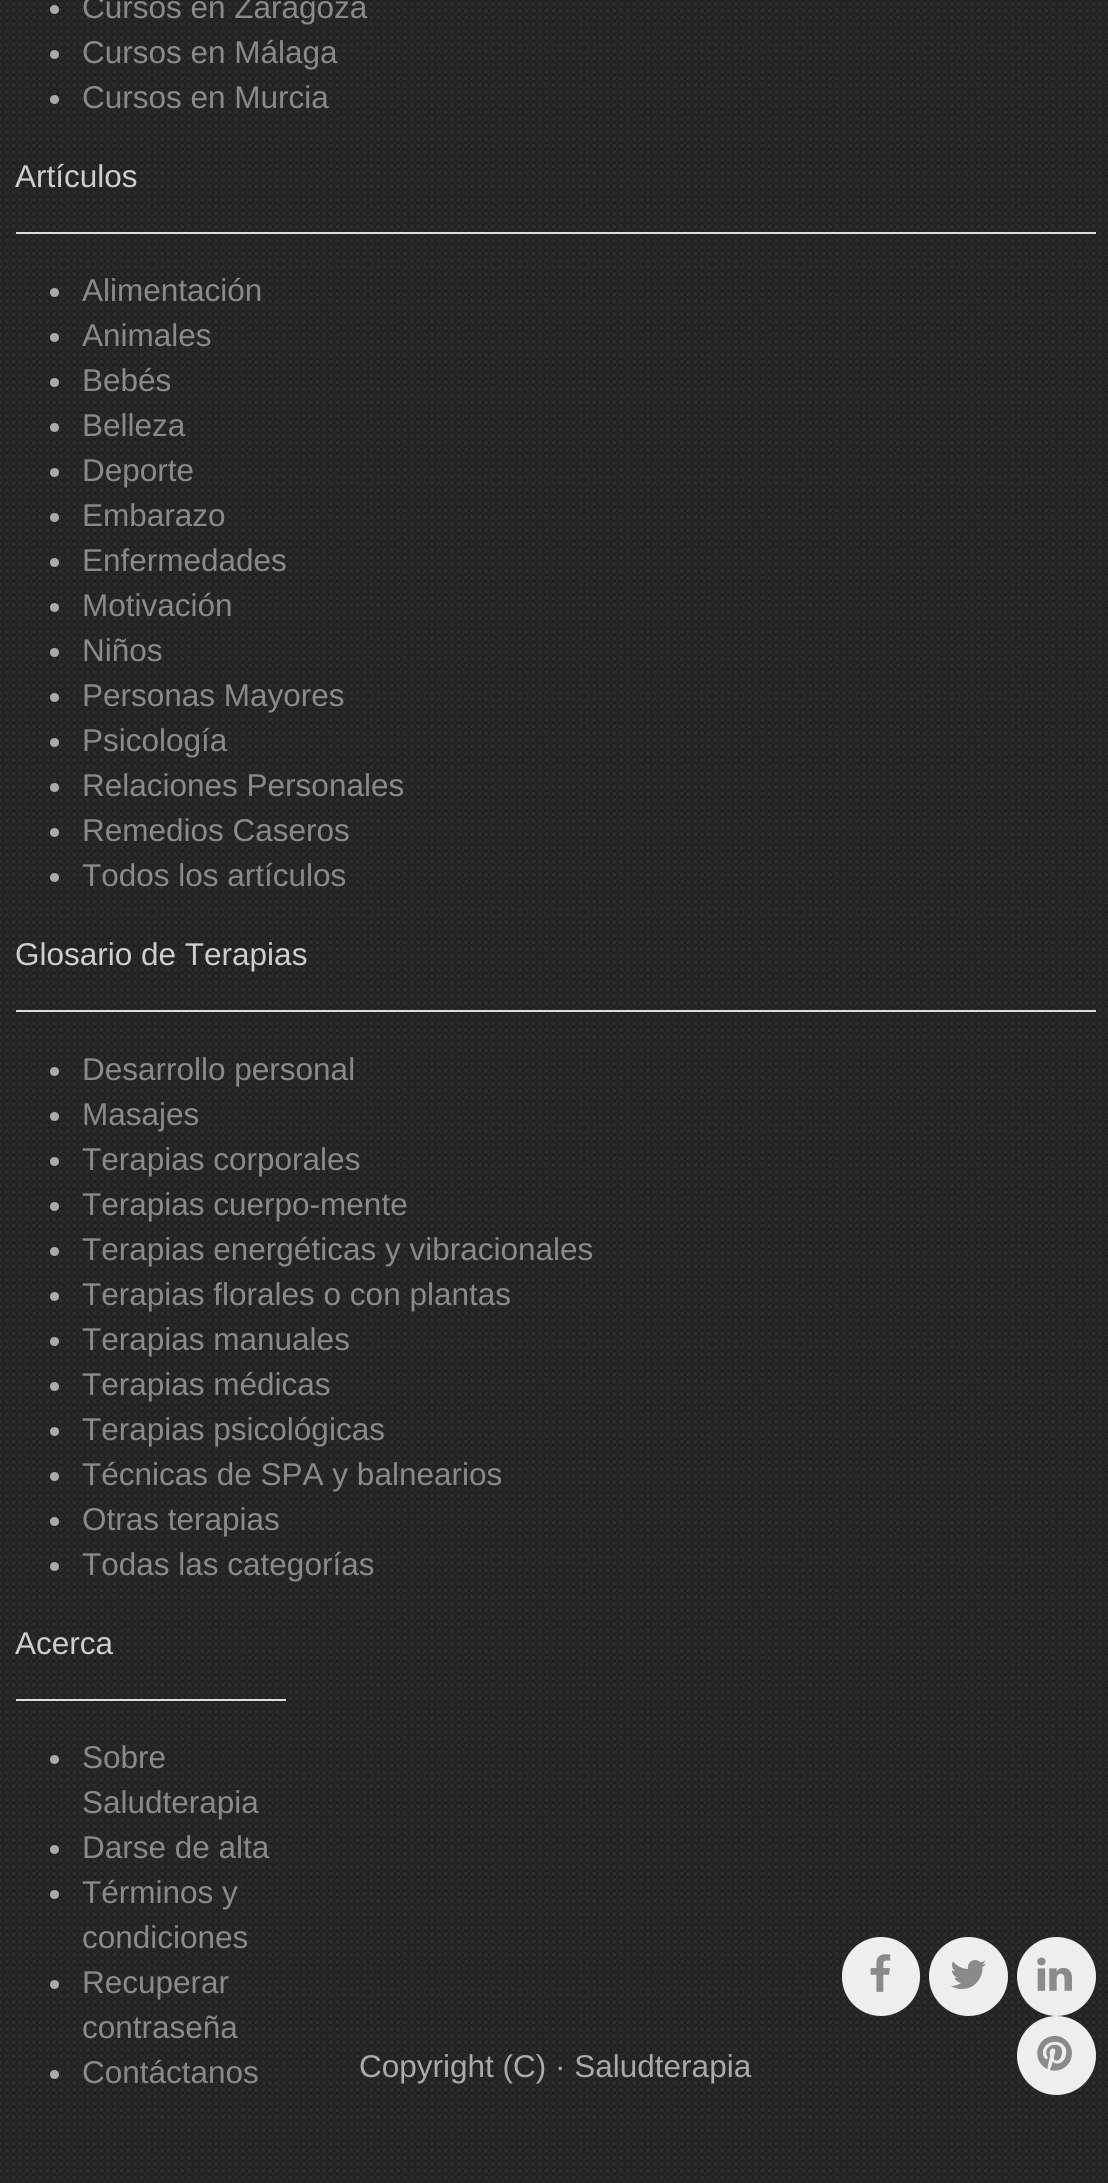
#include <cairo.h>
#include <math.h>
#include <stddef.h>

static cairo_t *c;
static void C(unsigned color){cairo_set_source_rgb(c, (color >> 16) / 255.0, (color >> 8 & 255) / 255.0, (color & 255) / 255.0);}
static void F(const char *family, double size, int italic, int bold){cairo_select_font_face(c, family, italic ? CAIRO_FONT_SLANT_ITALIC : CAIRO_FONT_SLANT_NORMAL,bold ? CAIRO_FONT_WEIGHT_BOLD : CAIRO_FONT_WEIGHT_NORMAL);cairo_set_font_size(c, size);}
static void T(double x, double y, const char *s){cairo_move_to(c, x, y);cairo_show_text(c, s);}
static void R(double x, double y, double w, double h){cairo_rectangle(c, x, y, w, h);cairo_fill(c);}
static void Q(double x, double y, double w, double h, double r){cairo_new_sub_path(c);cairo_arc(c, x + w - r, y + h - r, r, 0, M_PI / 2);cairo_arc(c, x + r, y + h - r, r, M_PI / 2, M_PI);cairo_arc(c, x + r, y + r, r, M_PI, 1.5 * M_PI);cairo_arc(c, x + w - r, y + r, r, 1.5 * M_PI, 2 * M_PI);cairo_close_path(c);}
static void I(const char *path, double x, double y, double w, double h){cairo_surface_t *image = cairo_image_surface_create_from_png(path);cairo_save(c);cairo_set_source_surface(c, image, x, y);cairo_rectangle(c, x, y, w, h);cairo_fill(c);cairo_restore(c);cairo_surface_destroy(image);}
int main(void) {
cairo_surface_t *surface = cairo_image_surface_create(CAIRO_FORMAT_RGB24, 1108, 2183);
c = cairo_create(surface);
cairo_font_options_t *options = cairo_font_options_create();
cairo_font_options_set_hint_metrics(options, CAIRO_HINT_METRICS_OFF);
cairo_font_options_set_hint_style(options, CAIRO_HINT_STYLE_NONE);
cairo_set_font_options(c, options);
cairo_set_miter_limit(c, 4);
C(0x2d2d2d);
cairo_paint(c);
I("1.png",0,0,1108,2183);
C(0xaaaaaa);
cairo_arc(c,54.5,9.5,4.5,0,2 * M_PI);
cairo_fill(c);
F("Liberation Sans",31.5,0,0);
C(0x8a8a8a);
T(82,18,"Cursos en Zaragoza");
C(0xaaaaaa);
cairo_new_path(c);
cairo_arc(c,54.5,54.5,4.5,0,2 * M_PI);
cairo_fill(c);
C(0x8a8a8a);
T(82,63,"Cursos en Málaga");
C(0xaaaaaa);
cairo_new_path(c);
cairo_arc(c,54.5,99.5,4.5,0,2 * M_PI);
cairo_fill(c);
C(0x8a8a8a);
T(82,108,"Cursos en Murcia");
C(0xcecece);
T(15,187,"Artículos");
C(0xdddddd);
R(16,232,1080,2);
C(0xaaaaaa);
cairo_new_path(c);
cairo_arc(c,54.5,292.5,4.5,0,2 * M_PI);
cairo_fill(c);
C(0x8a8a8a);
T(82,301,"Alimentación");
C(0xaaaaaa);
cairo_new_path(c);
cairo_arc(c,54.5,337.5,4.5,0,2 * M_PI);
cairo_fill(c);
C(0x8a8a8a);
T(82,346,"Animales");
C(0xaaaaaa);
cairo_new_path(c);
cairo_arc(c,54.5,382.5,4.5,0,2 * M_PI);
cairo_fill(c);
C(0x8a8a8a);
T(82,391,"Bebés");
C(0xaaaaaa);
cairo_new_path(c);
cairo_arc(c,54.5,427.5,4.5,0,2 * M_PI);
cairo_fill(c);
C(0x8a8a8a);
T(82,436,"Belleza");
C(0xaaaaaa);
cairo_new_path(c);
cairo_arc(c,54.5,472.5,4.5,0,2 * M_PI);
cairo_fill(c);
C(0x8a8a8a);
T(82,481,"Deporte");
C(0xaaaaaa);
cairo_new_path(c);
cairo_arc(c,54.5,517.5,4.5,0,2 * M_PI);
cairo_fill(c);
C(0x8a8a8a);
T(82,526,"Embarazo");
C(0xaaaaaa);
cairo_new_path(c);
cairo_arc(c,54.5,562.5,4.5,0,2 * M_PI);
cairo_fill(c);
C(0x8a8a8a);
T(82,571,"Enfermedades");
C(0xaaaaaa);
cairo_new_path(c);
cairo_arc(c,54.5,607.5,4.5,0,2 * M_PI);
cairo_fill(c);
C(0x8a8a8a);
T(82,616,"Motivación");
C(0xaaaaaa);
cairo_new_path(c);
cairo_arc(c,54.5,652.5,4.5,0,2 * M_PI);
cairo_fill(c);
C(0x8a8a8a);
T(82,661,"Niños");
C(0xaaaaaa);
cairo_new_path(c);
cairo_arc(c,54.5,697.5,4.5,0,2 * M_PI);
cairo_fill(c);
C(0x8a8a8a);
T(82,706,"Personas Mayores");
C(0xaaaaaa);
cairo_new_path(c);
cairo_arc(c,54.5,742.5,4.5,0,2 * M_PI);
cairo_fill(c);
C(0x8a8a8a);
T(82,751,"Psicología");
C(0xaaaaaa);
cairo_new_path(c);
cairo_arc(c,54.5,787.5,4.5,0,2 * M_PI);
cairo_fill(c);
C(0x8a8a8a);
T(82,796,"Relaciones Personales");
C(0xaaaaaa);
cairo_new_path(c);
cairo_arc(c,54.5,832.5,4.5,0,2 * M_PI);
cairo_fill(c);
C(0x8a8a8a);
T(82,841,"Remedios Caseros");
C(0xaaaaaa);
cairo_new_path(c);
cairo_arc(c,54.5,877.5,4.5,0,2 * M_PI);
cairo_fill(c);
C(0x8a8a8a);
T(82,886,"Todos los artículos");
C(0xcecece);
T(15,965,"Glosario de Terapias");
C(0xdddddd);
R(16,1010,1080,2);
C(0xaaaaaa);
cairo_new_path(c);
cairo_arc(c,54.5,1071.5,4.5,0,2 * M_PI);
cairo_fill(c);
C(0x8a8a8a);
T(82,1080,"Desarrollo personal");
C(0xaaaaaa);
cairo_new_path(c);
cairo_arc(c,54.5,1116.5,4.5,0,2 * M_PI);
cairo_fill(c);
C(0x8a8a8a);
T(82,1125,"Masajes");
C(0xaaaaaa);
cairo_new_path(c);
cairo_arc(c,54.5,1161.5,4.5,0,2 * M_PI);
cairo_fill(c);
C(0x8a8a8a);
T(82,1170,"Terapias corporales");
C(0xaaaaaa);
cairo_new_path(c);
cairo_arc(c,54.5,1206.5,4.5,0,2 * M_PI);
cairo_fill(c);
C(0x8a8a8a);
T(82,1215,"Terapias cuerpo-mente");
C(0xaaaaaa);
cairo_new_path(c);
cairo_arc(c,54.5,1251.5,4.5,0,2 * M_PI);
cairo_fill(c);
C(0x8a8a8a);
T(82,1260,"Terapias energéticas y vibracionales");
C(0xaaaaaa);
cairo_new_path(c);
cairo_arc(c,54.5,1296.5,4.5,0,2 * M_PI);
cairo_fill(c);
C(0x8a8a8a);
T(82,1305,"Terapias florales o con plantas");
C(0xaaaaaa);
cairo_new_path(c);
cairo_arc(c,54.5,1341.5,4.5,0,2 * M_PI);
cairo_fill(c);
C(0x8a8a8a);
T(82,1350,"Terapias manuales");
C(0xaaaaaa);
cairo_new_path(c);
cairo_arc(c,54.5,1386.5,4.5,0,2 * M_PI);
cairo_fill(c);
C(0x8a8a8a);
T(82,1395,"Terapias médicas");
C(0xaaaaaa);
cairo_new_path(c);
cairo_arc(c,54.5,1431.5,4.5,0,2 * M_PI);
cairo_fill(c);
C(0x8a8a8a);
T(82,1440,"Terapias psicológicas");
C(0xaaaaaa);
cairo_new_path(c);
cairo_arc(c,54.5,1476.5,4.5,0,2 * M_PI);
cairo_fill(c);
C(0x8a8a8a);
T(82,1485,"Técnicas de SPA y balnearios");
C(0xaaaaaa);
cairo_new_path(c);
cairo_arc(c,54.5,1521.5,4.5,0,2 * M_PI);
cairo_fill(c);
C(0x8a8a8a);
T(82,1530,"Otras terapias");
C(0xaaaaaa);
cairo_new_path(c);
cairo_arc(c,54.5,1566.5,4.5,0,2 * M_PI);
cairo_fill(c);
C(0x8a8a8a);
T(82,1575,"Todas las categorías");
C(0xcecece);
T(15,1654,"Acerca");
C(0xdddddd);
R(16,1699,270,2);
C(0xaaaaaa);
cairo_new_path(c);
cairo_arc(c,54.5,1759.5,4.5,0,2 * M_PI);
cairo_fill(c);
C(0x8a8a8a);
T(82,1768,"Sobre");
T(82,1813,"Saludterapia");
C(0xaaaaaa);
cairo_new_path(c);
cairo_arc(c,54.5,1849.5,4.5,0,2 * M_PI);
cairo_fill(c);
C(0x8a8a8a);
T(82,1858,"Darse de alta");
C(0xaaaaaa);
cairo_new_path(c);
cairo_arc(c,54.5,1894.5,4.5,0,2 * M_PI);
cairo_fill(c);
C(0x8a8a8a);
T(82,1903,"Términos y");
T(82,1948,"condiciones");
C(0xaaaaaa);
cairo_new_path(c);
cairo_arc(c,54.5,1984.5,4.5,0,2 * M_PI);
cairo_fill(c);
C(0x8a8a8a);
T(82,1993,"Recuperar");
T(82,2038,"contraseña");
C(0xaaaaaa);
cairo_new_path(c);
cairo_arc(c,54.5,2074.5,4.5,0,2 * M_PI);
cairo_fill(c);
C(0x8a8a8a);
T(82,2083,"Contáctanos");
C(0xaaaaaa);
T(359,2077,"Copyright (C) · Saludterapia");
C(0xeeeeee);
Q(842,1937,78,79,39);
cairo_fill(c);
I("2.png",870,1954,21,38);
cairo_arc(c,968.5,1976.5,39.5,0,2 * M_PI);
cairo_fill(c);
I("3.png",950,1960,36,29);
cairo_arc(c,1056.5,1976.5,39.5,0,2 * M_PI);
cairo_fill(c);
I("4.png",1037,1957,35,34);
cairo_arc(c,1056.5,2055.5,39.5,0,2 * M_PI);
cairo_fill(c);
I("5.png",1037,2035,35,36);
cairo_surface_write_to_png(surface, "o.png");
cairo_font_options_destroy(options);
cairo_destroy(c);
cairo_surface_destroy(surface);
return 0;
}
